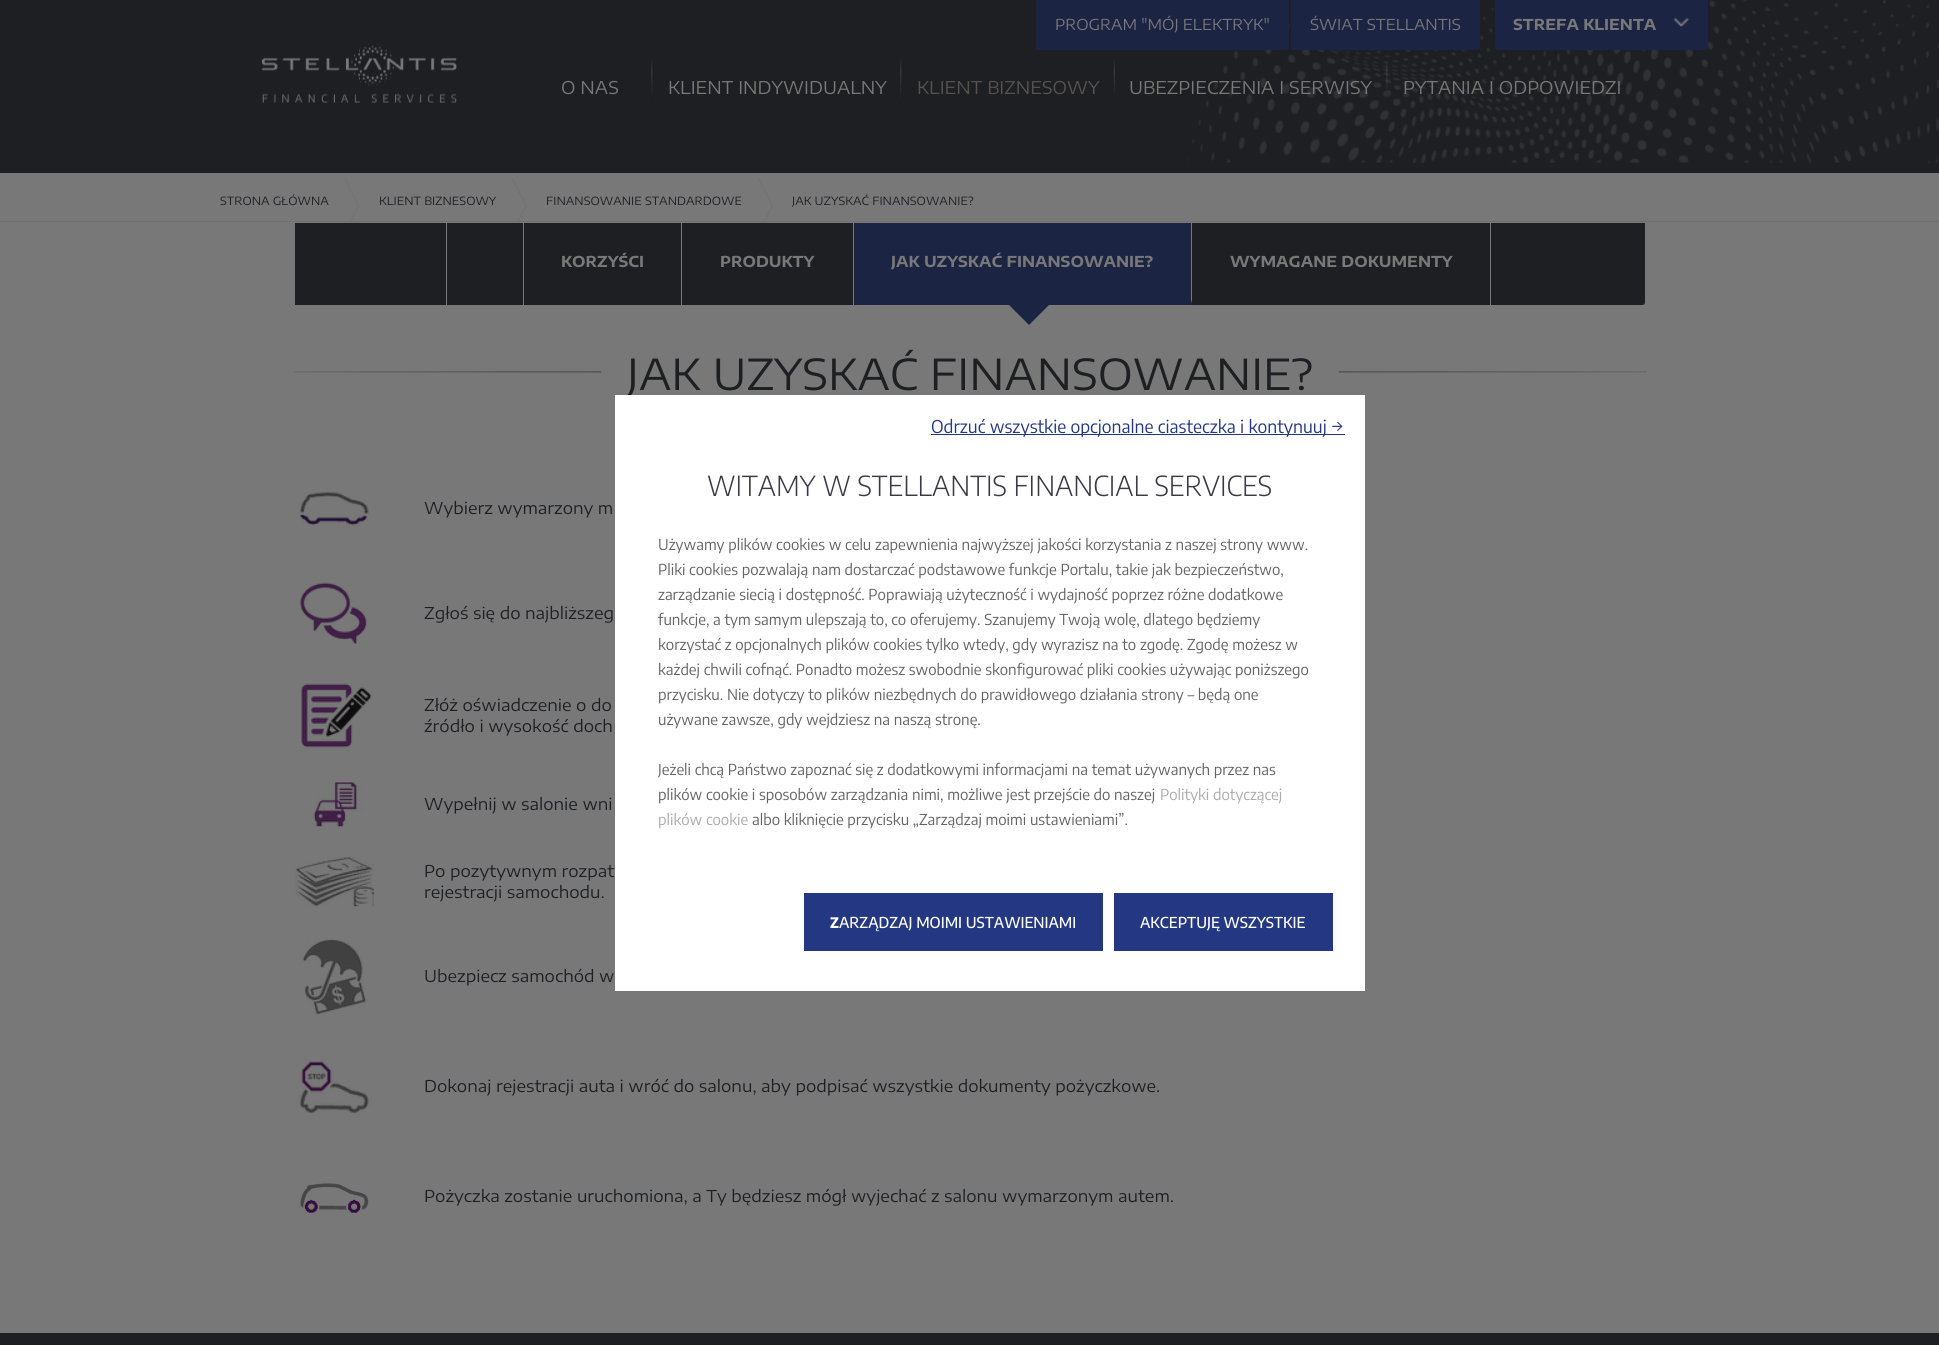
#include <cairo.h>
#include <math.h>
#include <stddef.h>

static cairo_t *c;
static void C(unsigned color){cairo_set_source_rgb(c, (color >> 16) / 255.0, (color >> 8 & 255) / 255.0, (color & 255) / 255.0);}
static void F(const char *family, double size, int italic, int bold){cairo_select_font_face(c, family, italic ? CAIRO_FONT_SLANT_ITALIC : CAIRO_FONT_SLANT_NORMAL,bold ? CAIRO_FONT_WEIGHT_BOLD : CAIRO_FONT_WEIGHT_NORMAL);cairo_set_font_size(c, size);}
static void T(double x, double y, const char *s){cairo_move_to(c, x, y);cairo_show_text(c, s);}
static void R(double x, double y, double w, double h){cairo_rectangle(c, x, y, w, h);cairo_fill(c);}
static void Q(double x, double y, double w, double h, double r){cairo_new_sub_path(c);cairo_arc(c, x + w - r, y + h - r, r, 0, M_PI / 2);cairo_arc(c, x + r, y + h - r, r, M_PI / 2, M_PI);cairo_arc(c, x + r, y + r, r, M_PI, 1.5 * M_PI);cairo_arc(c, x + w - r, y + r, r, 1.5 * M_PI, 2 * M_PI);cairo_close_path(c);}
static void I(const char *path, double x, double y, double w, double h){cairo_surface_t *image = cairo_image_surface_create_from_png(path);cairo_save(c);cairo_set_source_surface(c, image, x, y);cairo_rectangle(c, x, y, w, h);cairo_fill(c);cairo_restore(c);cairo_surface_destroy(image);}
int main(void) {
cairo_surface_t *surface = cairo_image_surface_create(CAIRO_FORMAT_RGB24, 1939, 1345);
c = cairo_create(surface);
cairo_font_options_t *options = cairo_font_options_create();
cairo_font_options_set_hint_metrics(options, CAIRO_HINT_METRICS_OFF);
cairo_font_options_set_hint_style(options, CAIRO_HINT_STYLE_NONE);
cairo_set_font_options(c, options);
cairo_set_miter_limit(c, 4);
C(0x787878);
cairo_paint(c);
C(0x1e1f23);
R(0,0,1939,173);
I("1.png",1187,0,752,163);
C(0x1c2444);
cairo_new_path(c);
cairo_move_to(c,1036,0);
cairo_line_to(c,1289,0);
cairo_line_to(c,1289,47.5);
cairo_curve_to(c,1289,49,1288,50,1286.5,50);
cairo_line_to(c,1038.5,50);
cairo_curve_to(c,1037,50,1036,49,1036,47.5);
cairo_close_path(c);
cairo_fill(c);
F("Encode Sans Expanded",15,0,0);
C(0x787878);
T(1055,30,"PROGRAM \"MÓJ ELEKTRYK\"");
C(0x1c2444);
cairo_new_path(c);
cairo_move_to(c,1291,0);
cairo_line_to(c,1480,0);
cairo_line_to(c,1480,47.5);
cairo_curve_to(c,1480,49,1479,50,1477.5,50);
cairo_line_to(c,1293.5,50);
cairo_curve_to(c,1292,50,1291,49,1291,47.5);
cairo_close_path(c);
cairo_fill(c);
C(0x787878);
T(1310,30,"ŚWIAT STELLANTIS");
C(0x1c2444);
cairo_new_path(c);
cairo_move_to(c,1495,0);
cairo_line_to(c,1708,0);
cairo_line_to(c,1708,47.5);
cairo_curve_to(c,1708,49,1707,50,1705.5,50);
cairo_line_to(c,1497.5,50);
cairo_curve_to(c,1496,50,1495,49,1495,47.5);
cairo_close_path(c);
cairo_fill(c);
F("Encode Sans Expanded",15,0,1);
C(0x787878);
T(1513,30,"STREFA KLIENTA");
I("2.png",1673,17,16,10);
I("3.png",261,43,196,61);
F("Encode Sans Expanded",17.5,0,0);
T(561,94,"O NAS");
I("4.png",651,59,2,46);
T(668,94,"KLIENT INDYWIDUALNY");
I("5.png",900,59,2,47);
C(0x56524e);
T(917,94,"KLIENT BIZNESOWY");
I("6.png",1113,59,2,47);
C(0x787878);
T(1129,94,"UBEZPIECZENIA I SERWISY");
I("7.png",1386,59,2,46);
T(1403,94,"PYTANIA I ODPOWIEDZI");
F("Encode Sans Expanded",11.25,0,0);
C(0x1e1f23);
T(220,205,"STRONA GŁÓWNA");
I("8.png",345,178,14,45);
T(379,205,"KLIENT BIZNESOWY");
I("9.png",512,179,15,44);
T(546,205,"FINANSOWANIE STANDARDOWE");
I("10.png",758,179,15,44);
T(792,205,"JAK UZYSKAĆ FINANSOWANIE?");
C(0x707071);
R(0,221,1939,1);
C(0x1e1f23);
R(295,223,1350,3);
cairo_save(c);
cairo_rectangle(c,295,223,1350,125);
cairo_clip(c);
Q(293,223,1352,82,2.5);
cairo_fill(c);
cairo_restore(c);
C(0x787878);
R(523,223,1,82);
R(446,223,1,82);
R(681,223,1,82);
F("Encode Sans Expanded",15,0,1);
T(561,267,"KORZYŚCI");
R(853,223,1,82);
T(720,267,"PRODUKTY");
cairo_new_path(c);
cairo_move_to(c,1192,222);
cairo_line_to(c,1192,305);
cairo_line_to(c,1191,300);
cairo_line_to(c,1191,222);
cairo_close_path(c);
cairo_fill(c);
C(0x1c2444);
cairo_new_path(c);
cairo_move_to(c,1192,305);
cairo_line_to(c,854,305);
cairo_line_to(c,854,300);
cairo_line_to(c,1191,300);
cairo_close_path(c);
cairo_fill(c);
R(854,223,337,77);
C(0x787878);
T(891,267,"JAK UZYSKAĆ FINANSOWANIE?");
C(0x1c2444);
cairo_new_path(c);
cairo_move_to(c,1004,300);
cairo_line_to(c,1054,300);
cairo_line_to(c,1029,325);
cairo_close_path(c);
cairo_fill(c);
C(0x787878);
R(1490,223,1,82);
T(1230,267,"WYMAGANE DOKUMENTY");
I("11.png",293,371,309,2);
F("Encode Sans Expanded",42.5,0,0);
C(0x1e1f23);
T(627,390,"JAK UZYSKAĆ FINANSOWANIE?");
I("12.png",1338,371,309,2);
I("13.png",298,490,73,36);
F("Encode Sans Expanded",16.25,0,0);
T(424,514,"Wybierz wymarzony m");
I("14.png",299,582,68,62);
T(424,619,"Zgłoś się do najbliższeg");
I("15.png",301,683,71,65);
T(424,711,"Złóż oświadczenie o do");
T(424,732,"źródło i wysokość doch");
I("16.png",305,782,60,45);
T(424,810,"Wypełnij w salonie wni");
I("17.png",295,857,79,50);
T(424,877,"Po pozytywnym rozpat");
T(424,898,"rejestracji samochodu.");
I("18.png",295,938,72,78);
T(424,982,"Ubezpiecz samochód w");
I("19.png",295,1055,79,64);
T(424,1092,"Dokonaj rejestracji auta i wróć do salonu, aby podpisać wszystkie dokumenty pożyczkowe.");
I("20.png",300,1183,69,30);
T(424,1202,"Pożyczka zostanie uruchomiona, a Ty będziesz mógł wyjechać z salonu wymarzonym autem.");
R(0,1333,1939,12);
C(0xffffff);
R(615,395,750,596);
C(0x243783);
R(931,434,414,1);
F("Encode Sans",17.5,0,0);
T(931,433,"Odrzuć wszystkie opcjonalne ciasteczka i kontynuuj →");
F("Encode Sans Light",27.5,0,0);
C(0x3c3947);
T(707,496,"WITAMY W STELLANTIS FINANCIAL SERVICES");
F("Encode Sans",15,0,0);
C(0x646464);
T(658,550,"Używamy plików cookies w celu zapewnienia najwyższej jakości korzystania z naszej strony www.");
T(658,575,"Pliki cookies pozwalają nam dostarczać podstawowe funkcje Portalu, takie jak bezpieczeństwo,");
T(658,600,"zarządzanie siecią i dostępność. Poprawiają użyteczność i wydajność poprzez różne dodatkowe");
T(658,625,"funkcje, a tym samym ulepszają to, co oferujemy. Szanujemy Twoją wolę, dlatego będziemy");
T(658,650,"korzystać z opcjonalnych plików cookies tylko wtedy, gdy wyrazisz na to zgodę. Zgodę możesz w");
T(658,675,"każdej chwili cofnąć. Ponadto możesz swobodnie skonfigurować pliki cookies używając poniższego");
T(658,700,"przycisku. Nie dotyczy to plików niezbędnych do prawidłowego działania strony – będą one");
T(658,725,"używane zawsze, gdy wejdziesz na naszą stronę.");
T(658,775,"Jeżeli chcą Państwo zapoznać się z dodatkowymi informacjami na temat używanych przez nas");
T(658,800,"plików cookie i sposobów zarządzania nimi, możliwe jest przejście do naszej");
C(0xababab);
T(1160,800,"Polityki dotyczącej");
T(658,825,"plików cookie");
C(0x646464);
T(752,825,"albo kliknięcie przycisku „Zarządzaj moimi ustawieniami”.");
C(0x243783);
R(804,893,299,58);
F("Noto Sans ExtraBold",15,0,0);
C(0xffffff);
T(830,928,"Z");
F("Encode Sans Medium",15,0,0);
T(839,928,"ARZĄDZAJ MOIMI USTAWIENIAMI");
C(0x243783);
R(1114,893,219,58);
C(0xffffff);
T(1140,928,"AKCEPTUJĘ WSZYSTKIE");
cairo_surface_write_to_png(surface, "o.png");
cairo_font_options_destroy(options);
cairo_destroy(c);
cairo_surface_destroy(surface);
return 0;
}
